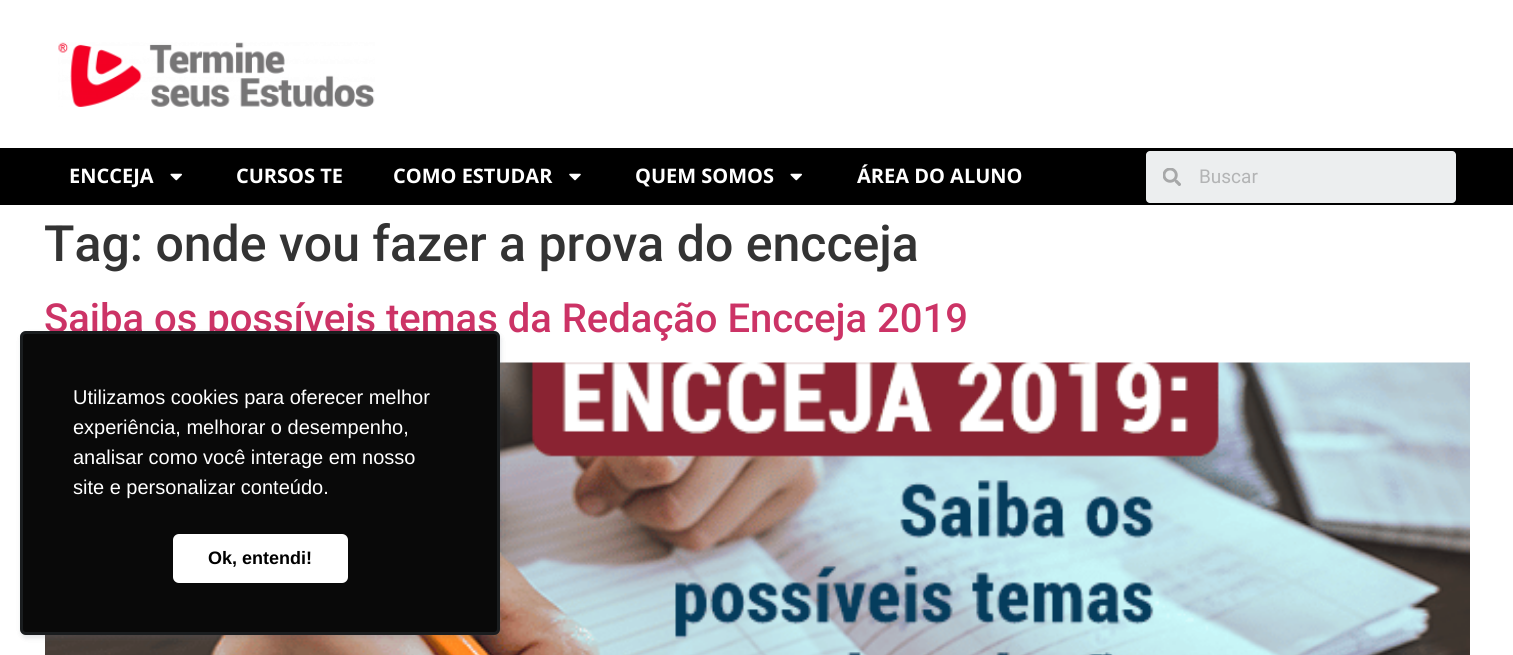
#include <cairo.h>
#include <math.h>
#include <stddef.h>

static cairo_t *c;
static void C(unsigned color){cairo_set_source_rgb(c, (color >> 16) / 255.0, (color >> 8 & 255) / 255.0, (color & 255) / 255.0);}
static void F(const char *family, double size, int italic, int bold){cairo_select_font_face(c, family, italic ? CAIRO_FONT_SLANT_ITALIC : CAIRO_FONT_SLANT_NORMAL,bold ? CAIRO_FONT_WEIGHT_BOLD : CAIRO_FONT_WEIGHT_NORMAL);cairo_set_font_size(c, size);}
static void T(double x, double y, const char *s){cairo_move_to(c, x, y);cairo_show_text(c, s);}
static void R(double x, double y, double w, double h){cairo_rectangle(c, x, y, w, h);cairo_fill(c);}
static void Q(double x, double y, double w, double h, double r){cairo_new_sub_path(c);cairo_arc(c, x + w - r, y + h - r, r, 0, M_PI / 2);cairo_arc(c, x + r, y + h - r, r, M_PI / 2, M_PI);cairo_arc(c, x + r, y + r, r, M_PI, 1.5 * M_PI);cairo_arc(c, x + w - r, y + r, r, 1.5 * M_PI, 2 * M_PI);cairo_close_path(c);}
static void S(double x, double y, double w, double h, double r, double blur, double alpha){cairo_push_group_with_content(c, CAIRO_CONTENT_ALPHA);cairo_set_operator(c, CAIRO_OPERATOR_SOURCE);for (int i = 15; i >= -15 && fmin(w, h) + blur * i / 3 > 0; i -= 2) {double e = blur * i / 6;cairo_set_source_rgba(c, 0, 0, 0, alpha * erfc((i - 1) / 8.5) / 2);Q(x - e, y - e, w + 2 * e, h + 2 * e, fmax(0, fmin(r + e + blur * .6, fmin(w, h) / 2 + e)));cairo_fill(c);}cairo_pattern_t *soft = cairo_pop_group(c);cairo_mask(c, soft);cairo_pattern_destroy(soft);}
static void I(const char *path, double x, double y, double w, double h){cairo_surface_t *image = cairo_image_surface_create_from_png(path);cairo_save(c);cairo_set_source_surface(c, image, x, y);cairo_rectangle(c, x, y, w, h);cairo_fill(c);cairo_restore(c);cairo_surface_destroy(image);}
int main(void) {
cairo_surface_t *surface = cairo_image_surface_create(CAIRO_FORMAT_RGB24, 1513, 655);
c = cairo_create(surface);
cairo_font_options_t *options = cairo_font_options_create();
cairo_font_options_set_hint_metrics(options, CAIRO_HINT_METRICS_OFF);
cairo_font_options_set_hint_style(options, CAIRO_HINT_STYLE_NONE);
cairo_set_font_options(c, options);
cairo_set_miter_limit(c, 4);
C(0xffffff);
cairo_paint(c);
I("1.png",58,42,317,65);
C(0x000000);
R(0,148,1513,57);
F("Open Sans",20,0,1);
C(0xffffff);
T(69,183,"ENCCEJA");
I("2.png",170,173,12,8);
T(236,183,"CURSOS TE");
T(393,183,"COMO ESTUDAR");
I("3.png",569,173,12,8);
T(635,183,"QUEM SOMOS");
I("2.png",790,173,12,8);
T(857,183,"ÁREA DO ALUNO");
C(0xeceeef);
Q(1146,151,310,52,4);
cairo_fill(c);
I("4.png",1163,168,18,18);
F("Roboto",19,0,0);
C(0xb3b4b5);
T(1199,183,"Buscar");
F("Roboto Medium",50,0,0);
C(0x333333);
T(44,261,"Tag: onde vou fazer a prova do encceja");
F("Roboto Medium",40,0,0);
C(0xcc3366);
T(44,332,"Saiba os possíveis temas da Redação Encceja 2019");
I("5.png",45,362,1425,293);
C(0x636e7c);
S(21,334,480,304,6,2.5,.1);
Q(21.5,332.5,477,301,4.5);
cairo_set_source_rgba(c,0.388,0.431,0.486,0.2);
cairo_set_line_width(c,3);
cairo_stroke(c);
C(0x636e7c);
S(21,334,480,304,6,2.5,.1);
C(0x090909);
Q(20,331,480,304,6);
cairo_fill(c);
Q(21.5,332.5,477,301,4.5);
cairo_set_source_rgba(c,0.388,0.431,0.486,0.2);
cairo_stroke(c);
F("Liberation Sans",20,0,0);
C(0xffffff);
T(73,404,"Utilizamos cookies para oferecer melhor");
T(73,434,"experiência, melhorar o desempenho,");
T(73,464,"analisar como você interage em nosso");
T(73,494,"site e personalizar conteúdo.");
Q(173,534,175,49,6);
cairo_fill(c);
F("Liberation Sans",18,0,1);
C(0x000000);
T(208,564,"Ok, entendi!");
cairo_surface_write_to_png(surface, "o.png");
cairo_font_options_destroy(options);
cairo_destroy(c);
cairo_surface_destroy(surface);
return 0;
}
